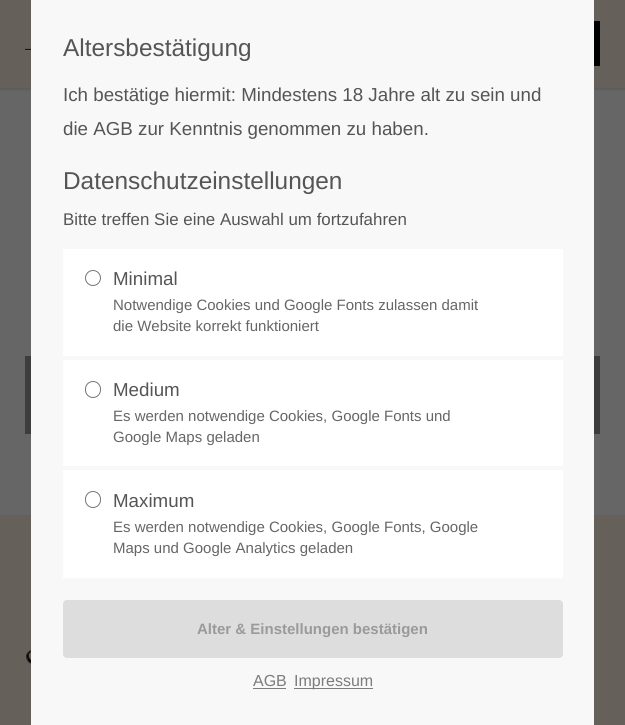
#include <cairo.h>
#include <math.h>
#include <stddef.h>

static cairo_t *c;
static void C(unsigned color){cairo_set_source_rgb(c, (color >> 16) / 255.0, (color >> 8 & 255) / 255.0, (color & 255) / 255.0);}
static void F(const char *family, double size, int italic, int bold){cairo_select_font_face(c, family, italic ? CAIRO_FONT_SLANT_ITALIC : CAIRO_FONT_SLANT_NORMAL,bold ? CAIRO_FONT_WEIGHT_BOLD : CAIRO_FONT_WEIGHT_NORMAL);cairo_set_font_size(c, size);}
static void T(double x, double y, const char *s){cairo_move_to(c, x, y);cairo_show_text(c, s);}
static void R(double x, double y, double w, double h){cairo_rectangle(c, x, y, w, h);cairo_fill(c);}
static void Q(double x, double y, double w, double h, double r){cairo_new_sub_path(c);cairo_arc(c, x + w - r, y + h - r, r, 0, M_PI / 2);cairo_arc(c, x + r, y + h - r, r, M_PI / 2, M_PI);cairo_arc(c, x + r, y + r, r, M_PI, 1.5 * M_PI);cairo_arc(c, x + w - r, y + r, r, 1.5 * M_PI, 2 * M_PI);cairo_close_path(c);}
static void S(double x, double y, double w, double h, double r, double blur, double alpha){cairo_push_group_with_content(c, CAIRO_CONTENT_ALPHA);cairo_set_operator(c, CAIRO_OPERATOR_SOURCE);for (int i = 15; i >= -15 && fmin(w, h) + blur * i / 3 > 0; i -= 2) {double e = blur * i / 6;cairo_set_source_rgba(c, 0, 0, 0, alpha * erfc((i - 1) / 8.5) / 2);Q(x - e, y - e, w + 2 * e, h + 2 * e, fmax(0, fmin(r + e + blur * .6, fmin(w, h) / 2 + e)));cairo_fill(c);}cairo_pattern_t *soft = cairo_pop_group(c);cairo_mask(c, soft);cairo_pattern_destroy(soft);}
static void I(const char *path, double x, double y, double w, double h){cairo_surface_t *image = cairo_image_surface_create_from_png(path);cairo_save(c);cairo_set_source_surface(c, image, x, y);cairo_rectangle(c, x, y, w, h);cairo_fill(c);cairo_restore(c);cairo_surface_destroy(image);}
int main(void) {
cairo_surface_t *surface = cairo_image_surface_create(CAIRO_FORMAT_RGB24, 625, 725);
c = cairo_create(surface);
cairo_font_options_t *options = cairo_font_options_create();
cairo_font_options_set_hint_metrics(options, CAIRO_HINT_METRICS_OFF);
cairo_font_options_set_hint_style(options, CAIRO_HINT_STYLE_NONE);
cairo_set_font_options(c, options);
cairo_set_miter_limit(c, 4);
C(0x666666);
cairo_paint(c);
C(0x000000);
S(-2,-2,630,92,0,1,.1);
C(0x66605a);
R(0,0,625,88);
I("1.png",25,48,6,2);
C(0x000000);
R(594,21,6,45);
C(0x3d3d3d);
R(25,356,575,78);
C(0x66605a);
R(0,515,625,210);
C(0xf8f8f8);
R(31,0,563,725);
F("Liberation Sans",24.4,0,0);
C(0x555555);
T(63,56,"Altersbestätigung");
F("Liberation Sans",18.75,0,0);
T(63,101,"Ich bestätige hiermit: Mindestens 18 Jahre alt zu sein und");
T(63,135,"die AGB zur Kenntnis genommen zu haben.");
F("Liberation Sans",24.4,0,0);
T(63,189,"Datenschutzeinstellungen");
F("Liberation Sans",16.9,0,0);
T(63,225,"Bitte treffen Sie eine Auswahl um fortzufahren");
C(0xffffff);
R(63,249,500,107);
cairo_new_path(c);
cairo_arc(c,93,278,7.5,0,2 * M_PI);
C(0x767676);
cairo_set_line_width(c,1);
cairo_stroke(c);
F("Liberation Sans",18.75,0,0);
C(0x555555);
T(113,285,"Minimal");
F("Liberation Sans",15,0,0);
C(0x666666);
T(113,310,"Notwendige Cookies und Google Fonts zulassen damit");
T(113,331,"die Website korrekt funktioniert");
C(0xffffff);
R(63,360,500,106);
Q(85.5,381.5,15,16,7.5);
C(0x767676);
cairo_stroke(c);
F("Liberation Sans",18.75,0,0);
C(0x555555);
T(113,396,"Medium");
F("Liberation Sans",15,0,0);
C(0x666666);
T(113,421,"Es werden notwendige Cookies, Google Fonts und");
T(113,442,"Google Maps geladen");
C(0xffffff);
R(63,470,500,108);
Q(85.5,491.5,15,16,7.5);
C(0x767676);
cairo_stroke(c);
F("Liberation Sans",18.75,0,0);
C(0x555555);
T(113,507,"Maximum");
F("Liberation Sans",15,0,0);
C(0x666666);
T(113,532,"Es werden notwendige Cookies, Google Fonts, Google");
T(113,553,"Maps und Google Analytics geladen");
C(0xdddddd);
Q(63.5,600.5,499,57,3.5);
cairo_fill_preserve(c);
cairo_stroke(c);
F("Liberation Sans",15,0,1);
C(0x9a9a9a);
T(197,634,"Alter & Einstellungen bestätigen");
F("Liberation Sans",16,0,0);
C(0x7c7c7c);
T(253,686,"AGB");
R(253,688,33,1);
R(294,688,79,1);
T(294,686,"Impressum");
I("2.png",26,649,5,15);
cairo_surface_write_to_png(surface, "o.png");
cairo_font_options_destroy(options);
cairo_destroy(c);
cairo_surface_destroy(surface);
return 0;
}
